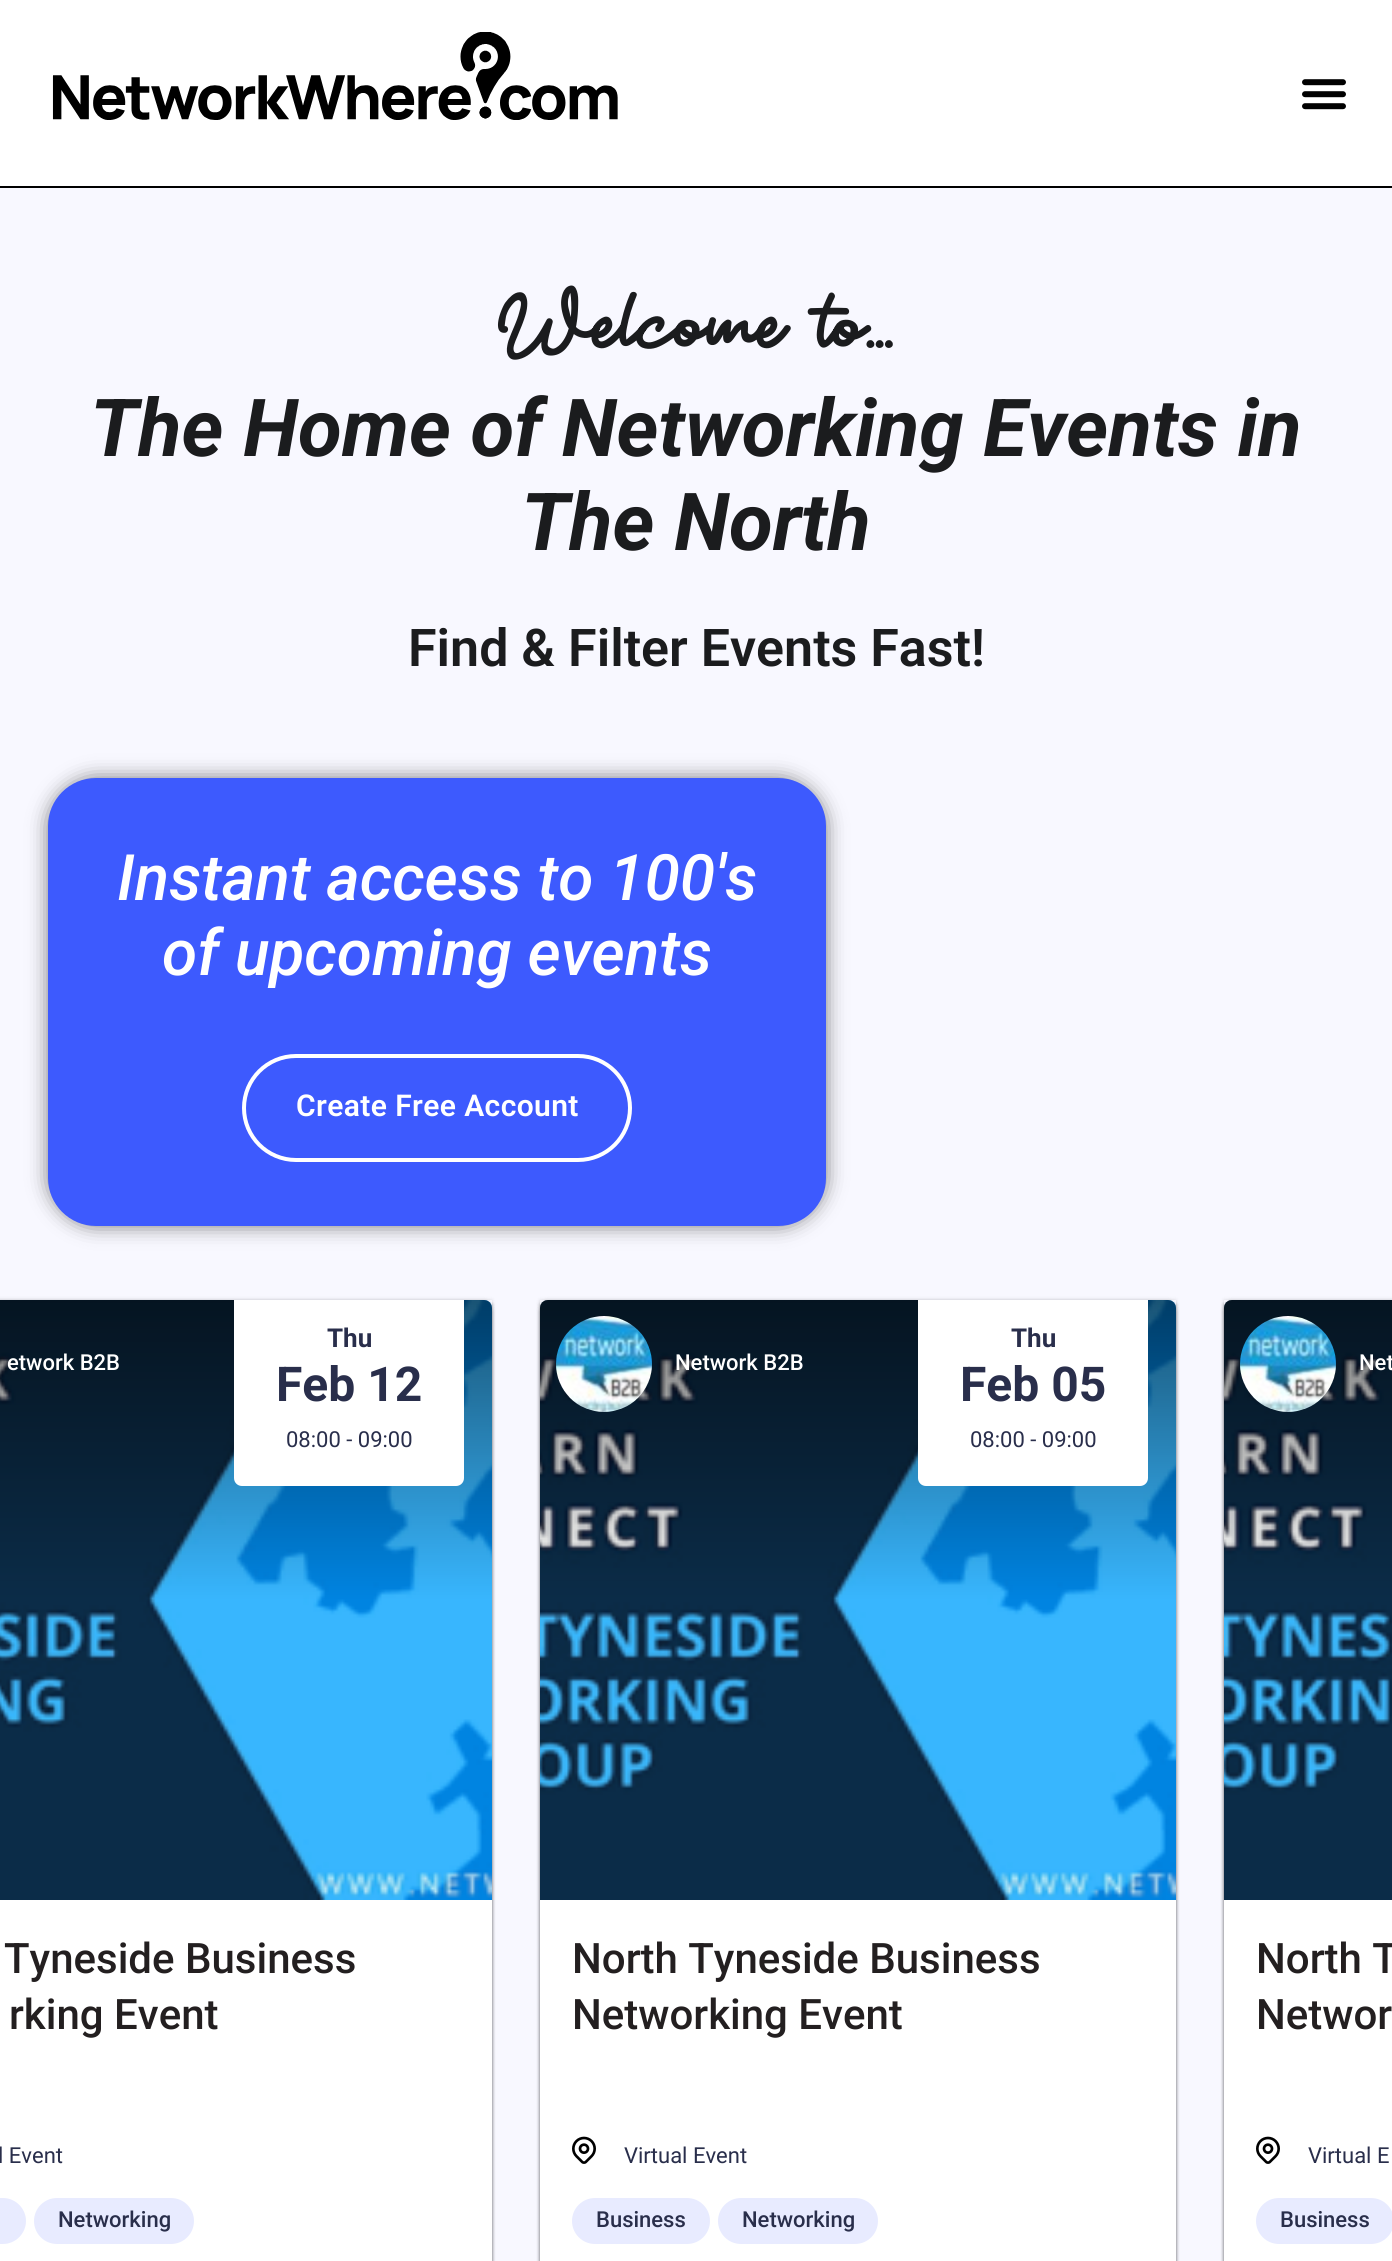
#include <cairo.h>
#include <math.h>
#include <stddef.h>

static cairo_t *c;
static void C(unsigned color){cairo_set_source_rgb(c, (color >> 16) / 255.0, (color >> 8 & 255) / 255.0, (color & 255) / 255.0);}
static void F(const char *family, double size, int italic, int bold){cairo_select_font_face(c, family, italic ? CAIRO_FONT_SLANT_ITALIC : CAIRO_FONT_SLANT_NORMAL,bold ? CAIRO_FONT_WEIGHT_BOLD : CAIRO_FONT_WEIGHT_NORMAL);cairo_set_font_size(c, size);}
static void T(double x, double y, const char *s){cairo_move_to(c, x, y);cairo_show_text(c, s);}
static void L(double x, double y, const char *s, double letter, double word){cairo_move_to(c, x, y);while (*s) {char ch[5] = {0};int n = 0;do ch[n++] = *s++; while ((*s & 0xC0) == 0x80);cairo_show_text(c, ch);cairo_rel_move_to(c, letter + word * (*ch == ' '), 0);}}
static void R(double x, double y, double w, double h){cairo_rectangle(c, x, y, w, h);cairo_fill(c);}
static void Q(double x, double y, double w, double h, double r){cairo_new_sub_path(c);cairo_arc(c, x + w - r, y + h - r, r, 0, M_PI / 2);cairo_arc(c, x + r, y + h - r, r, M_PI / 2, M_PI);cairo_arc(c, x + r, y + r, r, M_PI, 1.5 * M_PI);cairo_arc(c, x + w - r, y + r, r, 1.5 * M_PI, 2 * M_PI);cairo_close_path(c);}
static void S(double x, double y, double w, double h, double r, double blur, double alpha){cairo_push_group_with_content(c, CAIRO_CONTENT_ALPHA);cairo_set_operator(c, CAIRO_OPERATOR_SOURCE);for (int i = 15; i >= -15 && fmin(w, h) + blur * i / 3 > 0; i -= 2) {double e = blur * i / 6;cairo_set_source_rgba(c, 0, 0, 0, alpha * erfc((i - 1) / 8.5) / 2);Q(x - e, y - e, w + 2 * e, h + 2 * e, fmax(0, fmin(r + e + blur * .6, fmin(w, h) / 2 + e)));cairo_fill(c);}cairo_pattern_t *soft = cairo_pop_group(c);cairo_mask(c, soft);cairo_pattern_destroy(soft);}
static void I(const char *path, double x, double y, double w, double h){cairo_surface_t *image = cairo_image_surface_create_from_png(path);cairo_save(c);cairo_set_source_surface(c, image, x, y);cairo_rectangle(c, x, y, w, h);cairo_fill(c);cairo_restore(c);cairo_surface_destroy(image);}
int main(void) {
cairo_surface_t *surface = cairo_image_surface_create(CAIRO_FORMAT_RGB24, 1392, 2261);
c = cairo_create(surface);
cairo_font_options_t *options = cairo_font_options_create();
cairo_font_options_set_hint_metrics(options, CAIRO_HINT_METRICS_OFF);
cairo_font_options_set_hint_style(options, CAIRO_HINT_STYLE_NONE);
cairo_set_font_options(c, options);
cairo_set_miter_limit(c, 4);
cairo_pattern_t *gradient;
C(0xf8f8ff);
cairo_paint(c);
C(0xffffff);
R(0,0,1392,186);
C(0x000000);
R(0,186,1392,2);
I("1.png",52,32,566,88);
I("2.png",1302,79,44,31);
F("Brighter",96,0,0);
C(0x1b1c1e);
T(498,348,"Welcome to...");
F("Roboto",80,1,1);
T(90,456,"The Home of Networking Events in");
T(521,550,"The North");
F("Roboto SemiBold",52,0,0);
T(408,666,"Find & Filter Events Fast!");
C(0x000000);
S(48,778,778,448,48,10,.5);
C(0x3d5afe);
Q(48,778,778,448,48);
cairo_fill(c);
F("Roboto Medium",64,1,0);
C(0xffffff);
T(117,900,"Instant access to 100's");
T(162,975,"of upcoming events");
Q(244,1056,386,104,52);
cairo_set_line_width(c,4);
cairo_stroke(c);
F("Roboto SemiBold",30,0,0);
L(296,1116,"Create Free Account",.4,0);
C(0x000000);
S(-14,1304,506,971,8,2,.24);
S(-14,1300,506,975,8,2,.12);
C(0xffffff);
cairo_new_path(c);
cairo_move_to(c,0,1300);
cairo_line_to(c,484,1300);
cairo_curve_to(c,488.5,1300,492,1303.5,492,1308);
cairo_line_to(c,492,2261);
cairo_curve_to(c,492,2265.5,488.5,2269,484,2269);
cairo_line_to(c,0,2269);
cairo_close_path(c);
cairo_fill(c);
cairo_save(c);
cairo_rectangle(c,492,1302,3,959);
cairo_clip(c);
C(0x000000);
S(-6,1304,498,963,0,2,.24);
cairo_restore(c);
cairo_save(c);
cairo_set_fill_rule(c,CAIRO_FILL_RULE_EVEN_ODD);
cairo_new_path(c);
cairo_move_to(c,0,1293);
cairo_line_to(c,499,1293);
cairo_line_to(c,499,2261);
cairo_line_to(c,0,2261);
cairo_close_path(c);
cairo_move_to(c,-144,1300);
cairo_line_to(c,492,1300);
cairo_line_to(c,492,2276);
cairo_line_to(c,-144,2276);
cairo_close_path(c);
cairo_clip(c);
C(0x000000);
S(-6,1300,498,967,0,2,.12);
cairo_restore(c);
I("3.png",0,1300,492,600);
gradient = cairo_pattern_create_linear(174,1300,174,1900);
cairo_pattern_add_color_stop_rgba(gradient,0,0,0,0,.54);
cairo_pattern_add_color_stop_rgba(gradient,.5,0,0,0,0);
cairo_set_source(c,gradient);
cairo_pattern_destroy(gradient);
cairo_new_path(c);
cairo_move_to(c,0,1300);
cairo_line_to(c,484,1300);
cairo_curve_to(c,488.5,1300,492,1303.5,492,1308);
cairo_line_to(c,492,1900);
cairo_line_to(c,0,1900);
cairo_close_path(c);
cairo_fill(c);
F("Roboto Medium",22,0,0);
C(0xffffff);
T(7,1370,"etwork B2B");
cairo_new_path(c);
cairo_move_to(c,234,1300);
cairo_line_to(c,464,1300);
cairo_line_to(c,464,1478);
cairo_curve_to(c,464,1482.5,460.5,1486,456,1486);
cairo_line_to(c,242,1486);
cairo_curve_to(c,237.5,1486,234,1482.5,234,1478);
cairo_close_path(c);
cairo_fill(c);
F("Roboto",26,0,1);
C(0x292e4b);
T(327,1347,"Thu");
F("Roboto",48,0,1);
T(276,1401,"Feb 12");
F("Roboto",22,0,0);
T(286,1447,"08:00 - 09:00");
F("Roboto Medium",42,0,0);
C(0x231f20);
T(4,1973,"Tyneside Business");
T(9,2029,"rking Event");
F("Roboto",22,0,0);
C(0x292e4b);
T(-2,2163,"l Event");
C(0xe8ebff);
cairo_new_path(c);
cairo_move_to(c,0,2198);
cairo_line_to(c,3,2198);
cairo_curve_to(c,15.5,2198,26,2208.5,26,2221);
cairo_curve_to(c,26,2233.5,15.5,2244,3,2244);
cairo_line_to(c,0,2244);
cairo_close_path(c);
cairo_fill(c);
Q(34,2198,160,46,23);
cairo_fill(c);
F("Roboto Medium",22,0,0);
C(0x292e4b);
T(58,2227,"Networking");
C(0x000000);
S(540,1304,636,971,8,2,.24);
S(540,1300,636,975,8,2,.12);
C(0xffffff);
Q(540,1300,636,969,8);
cairo_fill(c);
cairo_save(c);
cairo_set_fill_rule(c,CAIRO_FILL_RULE_EVEN_ODD);
cairo_new_path(c);
cairo_move_to(c,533,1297);
cairo_line_to(c,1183,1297);
cairo_line_to(c,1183,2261);
cairo_line_to(c,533,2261);
cairo_close_path(c);
cairo_move_to(c,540,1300);
cairo_line_to(c,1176,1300);
cairo_line_to(c,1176,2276);
cairo_line_to(c,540,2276);
cairo_close_path(c);
cairo_clip(c);
C(0x000000);
S(540,1304,636,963,0,2,.24);
cairo_restore(c);
cairo_save(c);
cairo_set_fill_rule(c,CAIRO_FILL_RULE_EVEN_ODD);
cairo_new_path(c);
cairo_move_to(c,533,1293);
cairo_line_to(c,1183,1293);
cairo_line_to(c,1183,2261);
cairo_line_to(c,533,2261);
cairo_close_path(c);
cairo_move_to(c,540,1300);
cairo_line_to(c,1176,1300);
cairo_line_to(c,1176,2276);
cairo_line_to(c,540,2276);
cairo_close_path(c);
cairo_clip(c);
C(0x000000);
S(540,1300,636,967,0,2,.12);
cairo_restore(c);
I("4.png",540,1300,636,600);
gradient = cairo_pattern_create_linear(858,1300,858,1900);
cairo_pattern_add_color_stop_rgba(gradient,0,0,0,0,.54);
cairo_pattern_add_color_stop_rgba(gradient,.5,0,0,0,0);
cairo_set_source(c,gradient);
cairo_pattern_destroy(gradient);
cairo_new_path(c);
cairo_move_to(c,548,1300);
cairo_line_to(c,1168,1300);
cairo_curve_to(c,1172.5,1300,1176,1303.5,1176,1308);
cairo_line_to(c,1176,1900);
cairo_line_to(c,540,1900);
cairo_line_to(c,540,1308);
cairo_curve_to(c,540,1303.5,543.5,1300,548,1300);
cairo_close_path(c);
cairo_fill(c);
I("5.png",556,1316,96,96);
C(0xffffff);
T(675,1370,"Network B2B");
cairo_new_path(c);
cairo_move_to(c,918,1300);
cairo_line_to(c,1148,1300);
cairo_line_to(c,1148,1478);
cairo_curve_to(c,1148,1482.5,1144.5,1486,1140,1486);
cairo_line_to(c,926,1486);
cairo_curve_to(c,921.5,1486,918,1482.5,918,1478);
cairo_close_path(c);
cairo_fill(c);
F("Roboto",26,0,1);
C(0x292e4b);
T(1011,1347,"Thu");
F("Roboto",48,0,1);
T(960,1401,"Feb 05");
F("Roboto",22,0,0);
T(970,1447,"08:00 - 09:00");
F("Roboto Medium",42,0,0);
C(0x231f20);
T(572,1973,"North Tyneside Business");
T(572,2029,"Networking Event");
I("6.png",572,2136,24,28);
F("Roboto",22,0,0);
C(0x292e4b);
T(624,2163,"Virtual Event");
C(0xe8ebff);
Q(572,2198,138,46,23);
cairo_fill(c);
F("Roboto Medium",22,0,0);
C(0x292e4b);
T(596,2227,"Business");
C(0xe8ebff);
Q(718,2198,160,46,23);
cairo_fill(c);
C(0x292e4b);
T(742,2227,"Networking");
C(0x000000);
S(1224,1304,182,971,8,2,.24);
S(1224,1300,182,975,8,2,.12);
C(0xffffff);
cairo_new_path(c);
cairo_move_to(c,1232,1300);
cairo_line_to(c,1392,1300);
cairo_line_to(c,1392,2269);
cairo_line_to(c,1232,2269);
cairo_curve_to(c,1227.5,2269,1224,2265.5,1224,2261);
cairo_line_to(c,1224,1308);
cairo_curve_to(c,1224,1303.5,1227.5,1300,1232,1300);
cairo_close_path(c);
cairo_fill(c);
cairo_save(c);
cairo_rectangle(c,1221,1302,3,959);
cairo_clip(c);
C(0x000000);
S(1224,1304,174,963,0,2,.24);
cairo_restore(c);
cairo_save(c);
cairo_set_fill_rule(c,CAIRO_FILL_RULE_EVEN_ODD);
cairo_new_path(c);
cairo_move_to(c,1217,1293);
cairo_line_to(c,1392,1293);
cairo_line_to(c,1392,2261);
cairo_line_to(c,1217,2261);
cairo_close_path(c);
cairo_move_to(c,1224,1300);
cairo_line_to(c,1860,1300);
cairo_line_to(c,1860,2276);
cairo_line_to(c,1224,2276);
cairo_close_path(c);
cairo_clip(c);
C(0x000000);
S(1224,1300,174,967,0,2,.12);
cairo_restore(c);
I("7.png",1224,1300,168,600);
gradient = cairo_pattern_create_linear(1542,1300,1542,1900);
cairo_pattern_add_color_stop_rgba(gradient,0,0,0,0,.54);
cairo_pattern_add_color_stop_rgba(gradient,.5,0,0,0,0);
cairo_set_source(c,gradient);
cairo_pattern_destroy(gradient);
cairo_new_path(c);
cairo_move_to(c,1232,1300);
cairo_line_to(c,1392,1300);
cairo_line_to(c,1392,1900);
cairo_line_to(c,1224,1900);
cairo_line_to(c,1224,1308);
cairo_curve_to(c,1224,1303.5,1227.5,1300,1232,1300);
cairo_close_path(c);
cairo_fill(c);
I("5.png",1240,1316,96,96);
C(0xffffff);
T(1359,1370,"Net");
F("Roboto Medium",42,0,0);
C(0x231f20);
T(1256,1973,"North T");
T(1256,2029,"Networ");
I("6.png",1256,2136,24,28);
F("Roboto",22,0,0);
C(0x292e4b);
T(1308,2163,"Virtual E");
C(0xe8ebff);
Q(1256,2198,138,46,23);
cairo_fill(c);
F("Roboto Medium",22,0,0);
C(0x292e4b);
T(1280,2227,"Business");
cairo_surface_write_to_png(surface, "o.png");
cairo_font_options_destroy(options);
cairo_destroy(c);
cairo_surface_destroy(surface);
return 0;
}
